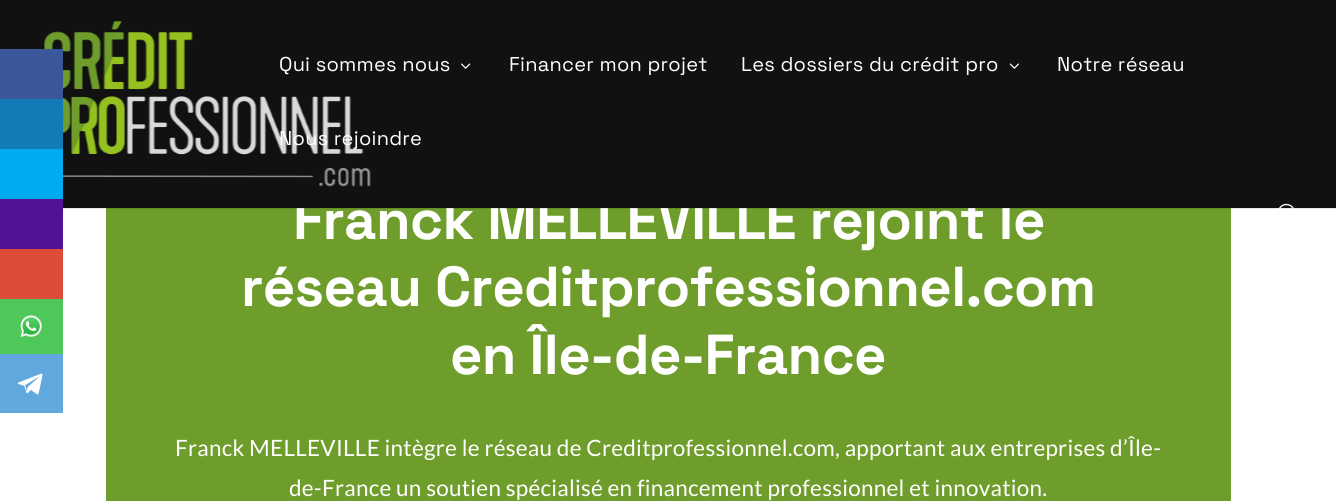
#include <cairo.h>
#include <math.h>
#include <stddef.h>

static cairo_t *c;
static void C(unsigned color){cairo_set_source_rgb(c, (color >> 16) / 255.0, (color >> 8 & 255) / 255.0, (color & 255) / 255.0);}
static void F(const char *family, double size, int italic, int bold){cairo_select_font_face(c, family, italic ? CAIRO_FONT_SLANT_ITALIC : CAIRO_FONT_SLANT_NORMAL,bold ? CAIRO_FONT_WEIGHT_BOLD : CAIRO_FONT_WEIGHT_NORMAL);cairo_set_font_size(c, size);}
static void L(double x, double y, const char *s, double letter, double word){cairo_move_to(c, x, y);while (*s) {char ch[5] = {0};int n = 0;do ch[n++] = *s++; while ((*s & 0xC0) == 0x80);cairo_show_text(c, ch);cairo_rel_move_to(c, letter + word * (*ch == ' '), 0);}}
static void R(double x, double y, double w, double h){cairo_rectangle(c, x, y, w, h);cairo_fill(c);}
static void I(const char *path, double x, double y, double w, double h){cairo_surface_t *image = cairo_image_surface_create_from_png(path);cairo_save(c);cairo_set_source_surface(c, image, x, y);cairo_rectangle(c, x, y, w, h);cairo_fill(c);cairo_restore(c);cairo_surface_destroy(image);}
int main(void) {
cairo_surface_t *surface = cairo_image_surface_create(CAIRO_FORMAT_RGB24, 1336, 501);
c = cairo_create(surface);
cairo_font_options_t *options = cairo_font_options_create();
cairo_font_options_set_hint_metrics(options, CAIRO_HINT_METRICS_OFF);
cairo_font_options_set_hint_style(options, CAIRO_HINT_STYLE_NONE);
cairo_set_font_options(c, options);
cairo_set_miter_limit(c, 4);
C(0xffffff);
cairo_paint(c);
C(0x6e9d2b);
R(106,208,1125,293);
F("Space Grotesk",56.25,0,1);
C(0xffffff);
L(293,239,"Franck MELLEVILLE rejoint le",-.6,0);
C(0x111112);
R(0,0,1336,208);
I("3.png",43,21,328,166);
C(0x3a579a);
R(0,49,63,50);
C(0x127bb6);
R(0,99,63,50);
C(0x00abf0);
R(0,149,63,50);
C(0x511295);
R(0,199,63,50);
C(0xdd4b39);
R(0,249,63,50);
C(0x4dc859);
R(0,299,63,55);
I("1.png",20,314,22,23);
C(0x61a8de);
R(0,354,63,59);
I("2.png",17,373,26,22);
cairo_set_source_rgba(c,0,0,0,0.1);
R(63,208,1273,1);
F("Space Grotesk",20,0,0);
C(0xffffff);
L(279,71,"Qui sommes nous",.25,0);
I("4.png",461,63,10,6);
L(509,71,"Financer mon projet",.25,0);
L(741,71,"Les dossiers du crédit pro",.25,0);
I("5.png",1009,63,10,6);
L(1057,71,"Notre réseau",.25,0);
L(279,145,"Nous rejoindre",.25,0);
I("6.png",1278,203,16,6);
F("Space Grotesk",56.25,0,1);
L(241,306,"réseau Creditprofessionnel.com",-.6,0);
L(450,374,"en Île-de-France",-.6,0);
F("Lato",22.5,0,0);
L(175,456,"Franck MELLEVILLE intègre le réseau de Creditprofessionnel.com, apportant aux entreprises d’Île-",.25,0);
L(289,496,"de-France un soutien spécialisé en financement professionnel et innovation.",.25,0);
cairo_surface_write_to_png(surface, "o.png");
cairo_font_options_destroy(options);
cairo_destroy(c);
cairo_surface_destroy(surface);
return 0;
}
